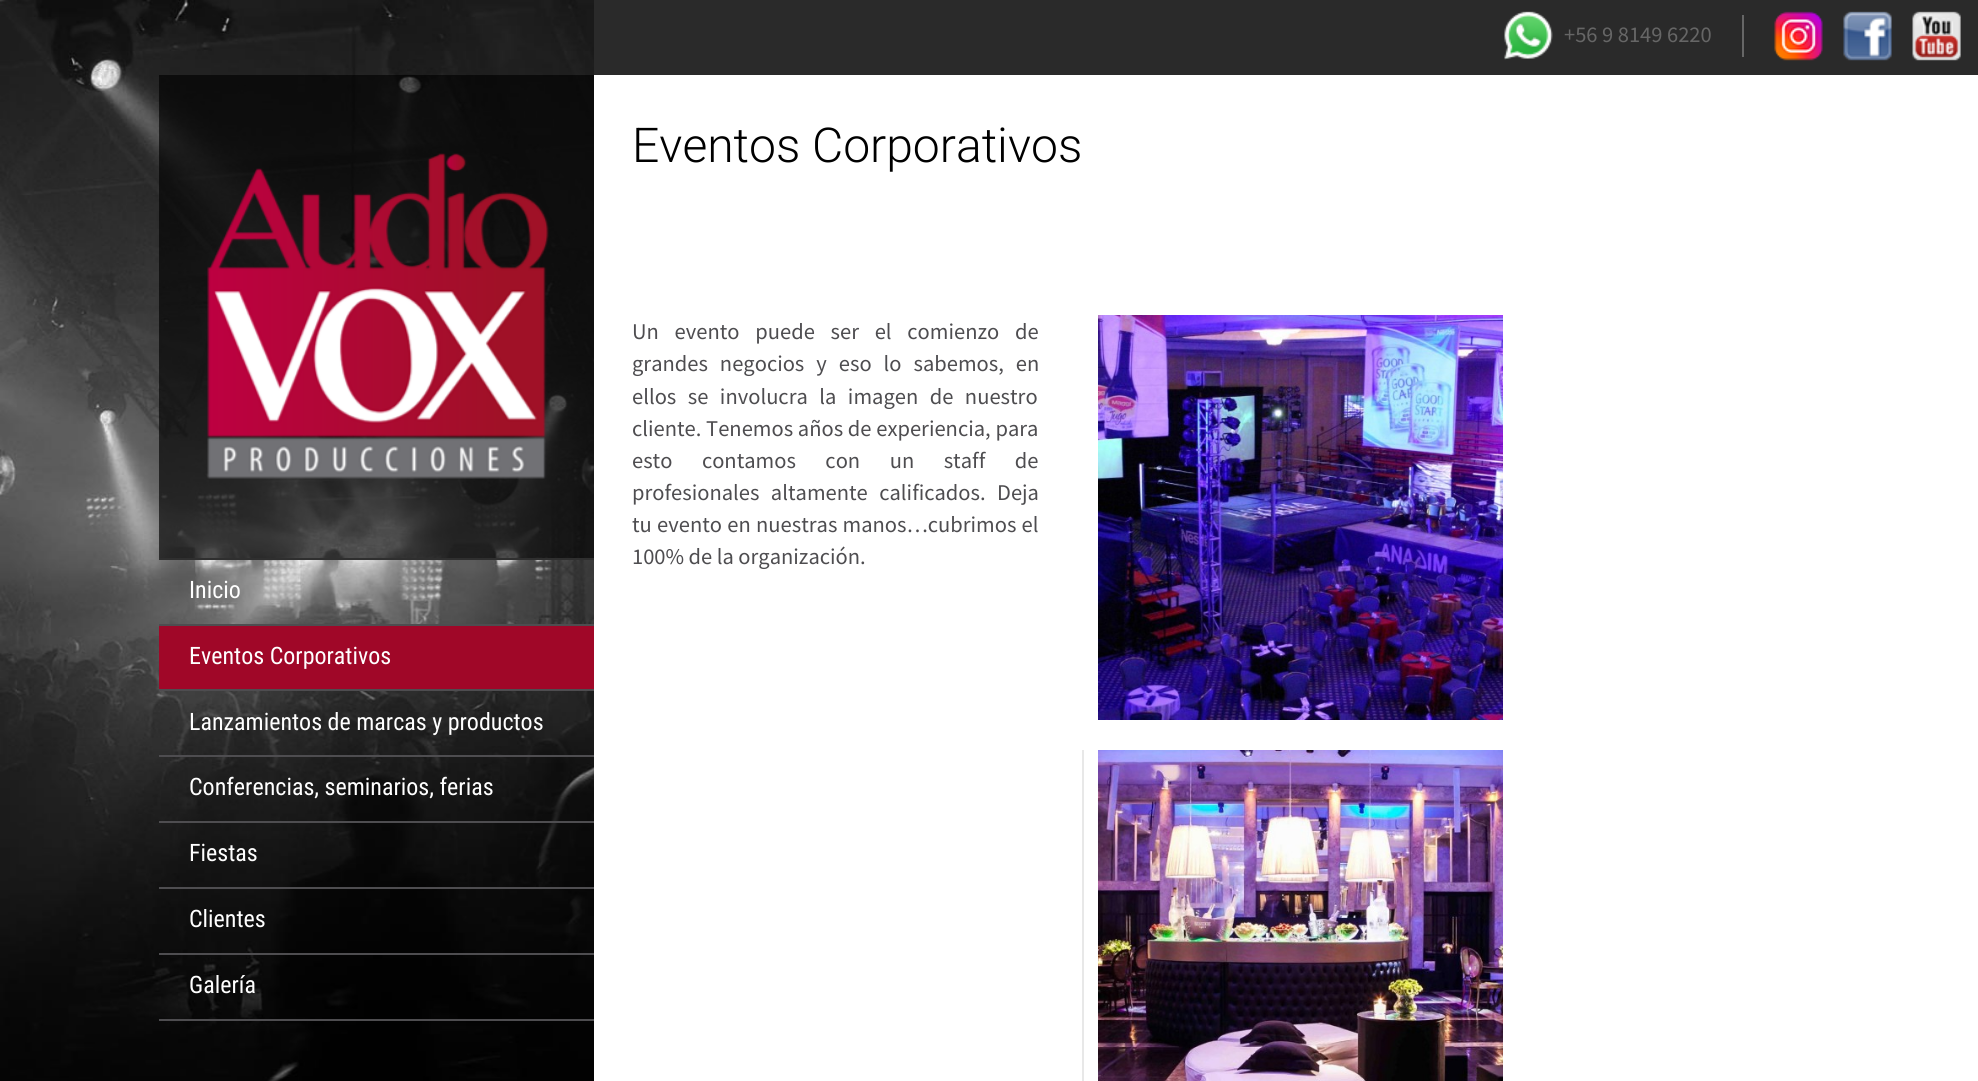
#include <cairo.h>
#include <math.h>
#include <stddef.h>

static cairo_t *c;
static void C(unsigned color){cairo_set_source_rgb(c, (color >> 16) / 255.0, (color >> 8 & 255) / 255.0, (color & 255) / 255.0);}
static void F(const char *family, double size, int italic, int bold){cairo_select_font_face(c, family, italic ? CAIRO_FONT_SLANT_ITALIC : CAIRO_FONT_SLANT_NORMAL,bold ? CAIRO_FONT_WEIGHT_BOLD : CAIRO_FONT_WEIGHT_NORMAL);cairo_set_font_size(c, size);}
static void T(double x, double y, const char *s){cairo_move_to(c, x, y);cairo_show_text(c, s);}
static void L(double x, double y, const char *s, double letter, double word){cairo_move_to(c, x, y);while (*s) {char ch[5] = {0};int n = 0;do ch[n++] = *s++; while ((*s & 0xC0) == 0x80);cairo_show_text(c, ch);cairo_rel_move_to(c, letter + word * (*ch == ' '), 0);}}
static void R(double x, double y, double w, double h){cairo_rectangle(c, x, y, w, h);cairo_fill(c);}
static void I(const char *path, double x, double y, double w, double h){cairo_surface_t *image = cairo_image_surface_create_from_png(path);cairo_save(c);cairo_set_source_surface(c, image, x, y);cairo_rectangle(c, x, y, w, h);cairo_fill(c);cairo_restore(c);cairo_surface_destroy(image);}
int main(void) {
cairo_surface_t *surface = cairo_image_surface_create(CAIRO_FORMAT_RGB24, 1978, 1081);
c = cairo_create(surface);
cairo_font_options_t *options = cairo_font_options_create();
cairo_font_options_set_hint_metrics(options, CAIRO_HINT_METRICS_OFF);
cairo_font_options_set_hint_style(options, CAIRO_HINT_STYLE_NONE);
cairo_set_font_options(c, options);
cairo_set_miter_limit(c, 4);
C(0x2a2a2a);
cairo_paint(c);
I("1.png",1504,11,49,49);
F("Source Sans Pro",22.5,0,0);
C(0x666666);
T(1564,42,"+56 9 8149 6220");
R(1742,15,2,42);
I("2.png",1774,11,49,50);
I("3.png",1843,11,49,50);
I("4.png",1912,11,49,50);
C(0xffffff);
R(594,75,1384,1006);
F("Roboto Light",48,0,0);
C(0x000000);
T(632,162,"Eventos Corporativos");
F("Source Sans Pro",22.5,0,0);
C(0x4e4d50);
L(632,339,"Un evento puede ser el comienzo de",0,11.25);
L(632,371,"grandes negocios y eso lo sabemos, en",0,7.5);
L(632,404,"ellos se involucra la imagen de nuestro",0,7);
L(632,436,"cliente. Tenemos años de experiencia, para",0,.25);
L(632,468,"esto contamos con un staff de",0,25);
L(632,500,"profesionales altamente calificados. Deja",0,7);
L(632,532,"tu evento en nuestras manos…cubrimos el",0,.75);
T(632,564,"100% de la organización.");
I("5.png",1098,315,405,405);
C(0xe8e8e8);
R(1082,750,2,331);
I("6.png",1098,750,405,331);
I("7.png",0,0,594,1081);
cairo_set_source_rgba(c,0,0,0,0.65);
R(159,75,435,483);
C(0x2f2f2f);
R(159,558,435,2);
I("8.png",207,153,342,326);
C(0x4e4d50);
R(159,624,435,2);
F("Roboto Condensed",24,0,0);
C(0xffffff);
T(189,598,"Inicio");
C(0xa00728);
R(159,626,435,63);
C(0x4e4d50);
R(159,689,435,2);
C(0xffffff);
T(189,664,"Eventos Corporativos");
C(0x4e4d50);
R(159,755,435,2);
C(0xffffff);
T(189,730,"Lanzamientos de marcas y productos");
C(0x4e4d50);
R(159,821,435,2);
C(0xffffff);
T(189,795,"Conferencias, seminarios, ferias");
C(0x4e4d50);
R(159,887,435,2);
C(0xffffff);
T(189,861,"Fiestas");
C(0x4e4d50);
R(159,953,435,2);
C(0xffffff);
T(189,927,"Clientes");
C(0x4e4d50);
R(159,1019,435,2);
C(0xffffff);
T(189,993,"Galería");
cairo_surface_write_to_png(surface, "o.png");
cairo_font_options_destroy(options);
cairo_destroy(c);
cairo_surface_destroy(surface);
return 0;
}
